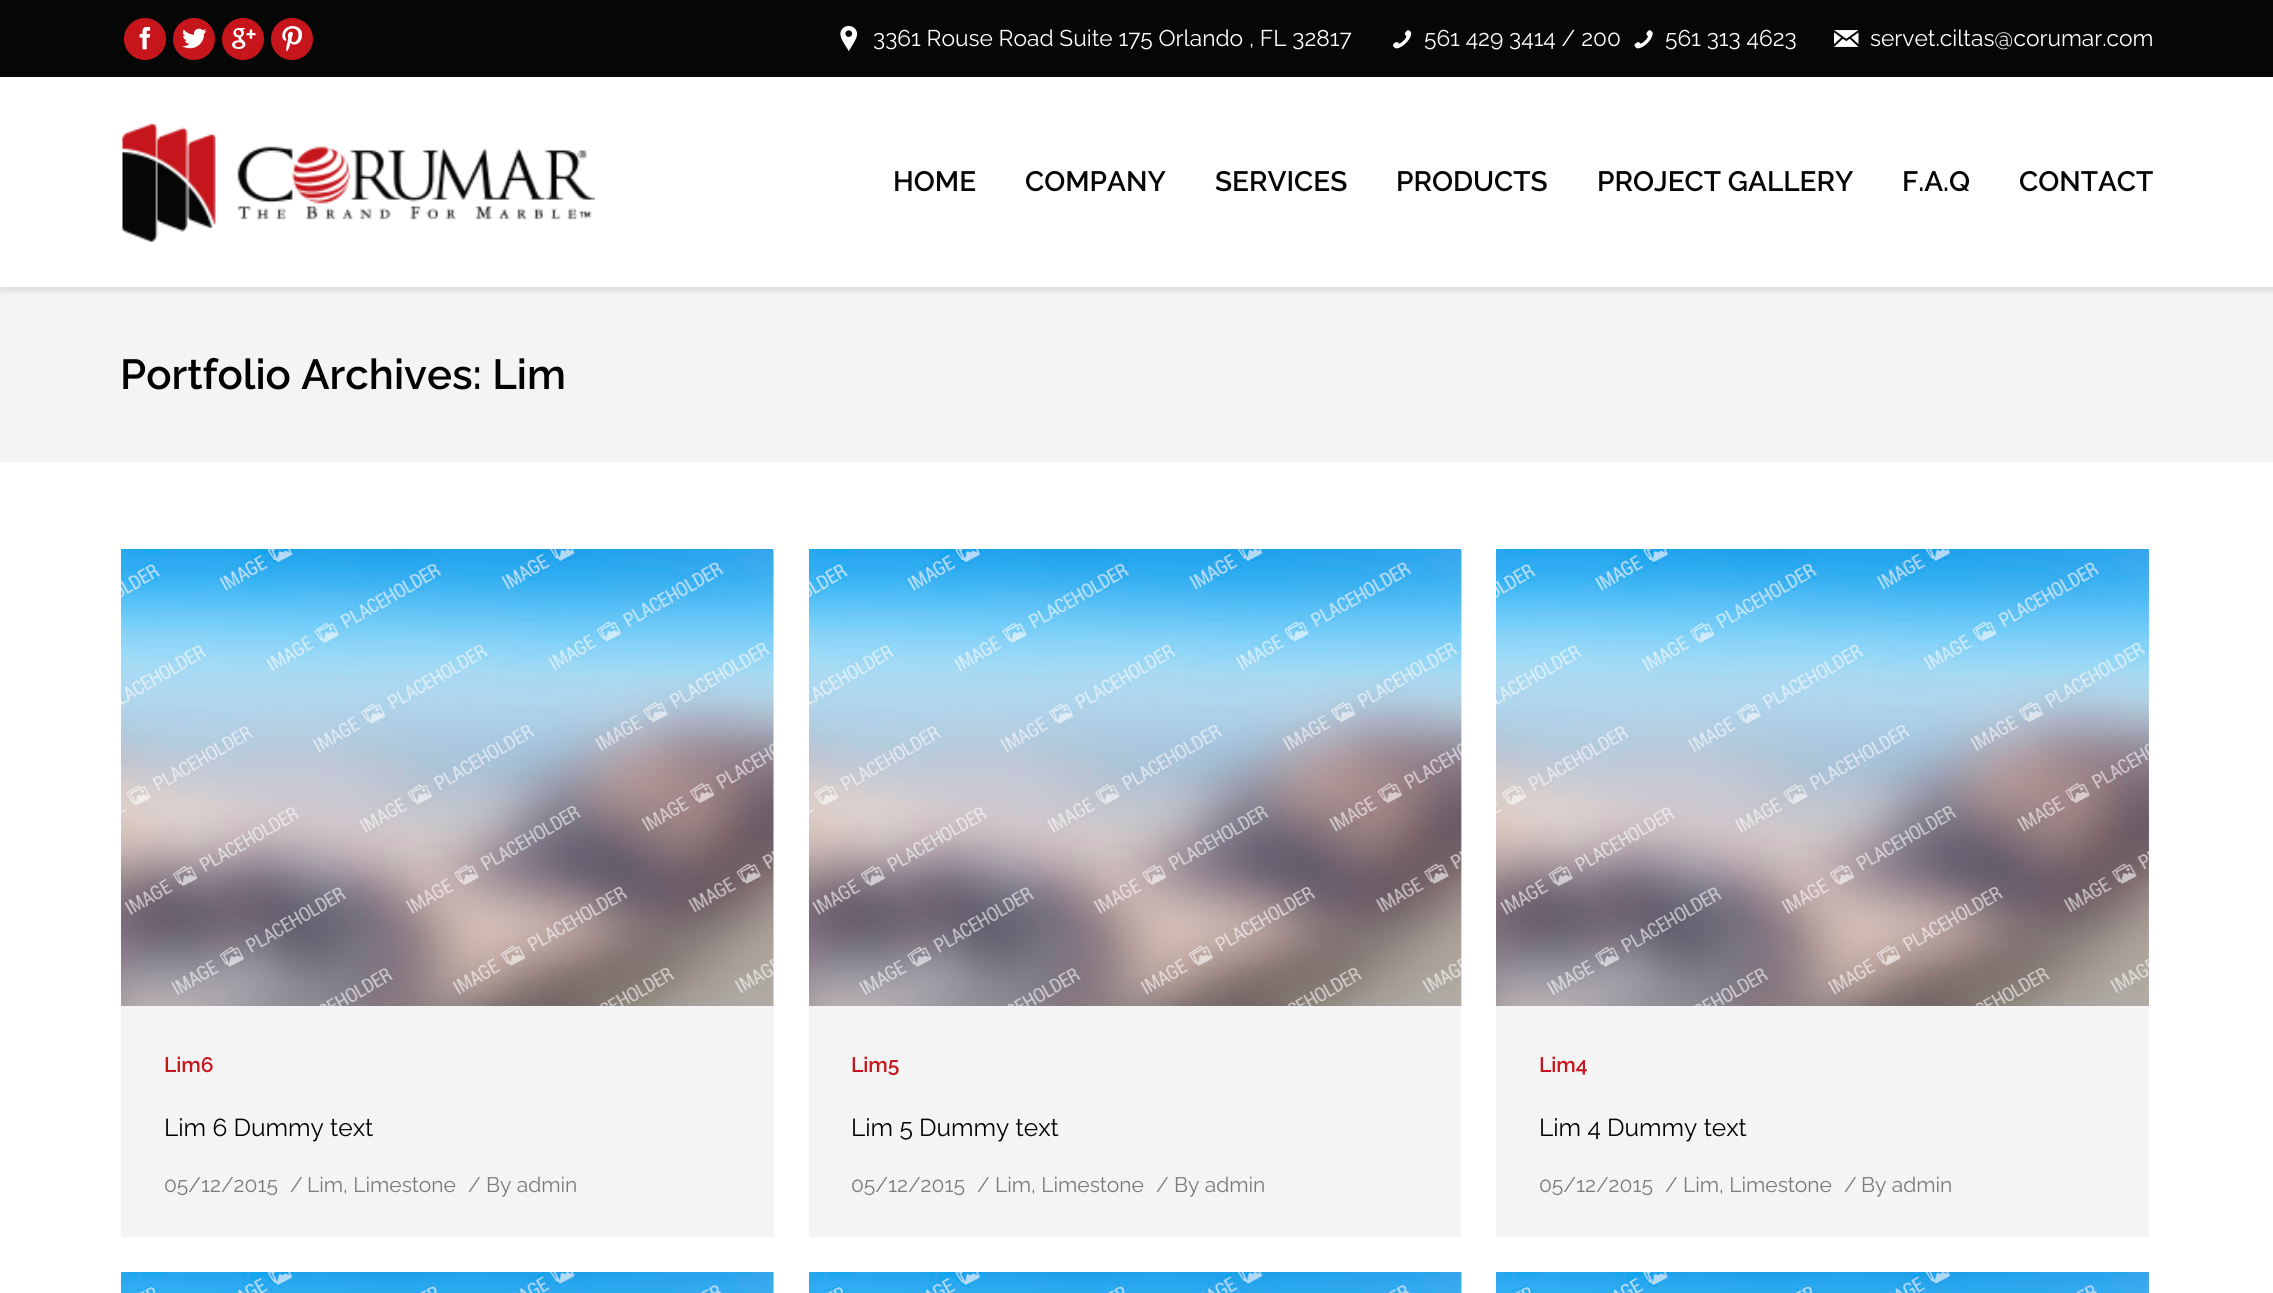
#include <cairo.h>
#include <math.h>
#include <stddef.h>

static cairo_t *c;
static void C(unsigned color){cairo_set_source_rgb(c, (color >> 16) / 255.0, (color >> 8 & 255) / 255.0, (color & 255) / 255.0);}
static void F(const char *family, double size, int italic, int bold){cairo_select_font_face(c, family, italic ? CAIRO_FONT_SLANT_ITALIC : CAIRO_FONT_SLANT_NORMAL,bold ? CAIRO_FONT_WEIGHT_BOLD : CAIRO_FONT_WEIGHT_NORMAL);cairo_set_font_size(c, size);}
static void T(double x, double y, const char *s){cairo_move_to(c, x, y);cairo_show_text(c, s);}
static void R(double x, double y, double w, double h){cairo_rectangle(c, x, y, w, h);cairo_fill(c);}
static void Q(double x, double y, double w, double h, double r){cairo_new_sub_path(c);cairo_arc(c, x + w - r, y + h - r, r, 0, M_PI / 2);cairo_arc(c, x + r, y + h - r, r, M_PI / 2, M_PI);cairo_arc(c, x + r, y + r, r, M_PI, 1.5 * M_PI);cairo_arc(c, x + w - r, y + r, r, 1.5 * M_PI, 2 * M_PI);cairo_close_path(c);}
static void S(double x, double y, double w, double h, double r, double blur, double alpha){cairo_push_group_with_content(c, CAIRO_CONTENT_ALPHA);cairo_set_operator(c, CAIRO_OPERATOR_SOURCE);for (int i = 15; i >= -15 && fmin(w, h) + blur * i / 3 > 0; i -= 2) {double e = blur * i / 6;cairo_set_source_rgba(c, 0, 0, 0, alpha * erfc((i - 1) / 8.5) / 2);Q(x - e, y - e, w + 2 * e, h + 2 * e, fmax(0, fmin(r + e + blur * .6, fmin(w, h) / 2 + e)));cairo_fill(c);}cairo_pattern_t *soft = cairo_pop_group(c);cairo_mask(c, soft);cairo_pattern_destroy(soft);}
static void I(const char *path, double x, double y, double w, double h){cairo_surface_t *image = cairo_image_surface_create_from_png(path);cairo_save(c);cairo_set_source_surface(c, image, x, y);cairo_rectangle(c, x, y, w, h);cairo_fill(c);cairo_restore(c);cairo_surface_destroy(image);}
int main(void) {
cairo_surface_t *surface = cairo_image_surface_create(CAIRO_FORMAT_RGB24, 2273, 1293);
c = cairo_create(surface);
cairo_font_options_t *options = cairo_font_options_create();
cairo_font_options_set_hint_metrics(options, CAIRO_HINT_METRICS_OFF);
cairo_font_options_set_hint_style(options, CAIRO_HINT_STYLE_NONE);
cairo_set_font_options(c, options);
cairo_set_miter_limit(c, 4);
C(0xffffff);
cairo_paint(c);
C(0xf4f4f4);
R(0,287,2273,175);
cairo_save(c);
cairo_rectangle(c,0,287,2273,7);
cairo_clip(c);
C(0x000000);
S(0,0,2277,291,0,3.5,.1);
cairo_restore(c);
C(0x050707);
R(0,0,2273,77);
C(0xc6161c);
cairo_arc(c,145,39,21,0,2 * M_PI);
cairo_fill(c);
I("1.png",139,27,12,23);
cairo_arc(c,194,39,21,0,2 * M_PI);
cairo_fill(c);
I("2.png",182,28,25,21);
cairo_arc(c,243,39,21,0,2 * M_PI);
cairo_fill(c);
I("3.png",232,28,24,21);
cairo_arc(c,292,39,21,0,2 * M_PI);
cairo_fill(c);
I("4.png",282,26,21,26);
I("5.png",840,25,18,26);
F("Raleway",22.75,0,0);
C(0xffffff);
T(873,46,"3361 Rouse Road Suite 175 Orlando , FL 32817");
I("6.png",1393,30,19,19);
T(1424,46,"561 429 3414 / 200");
I("7.png",1634,30,19,19);
T(1665,46,"561 313 4623");
I("8.png",1834,30,25,17);
T(1870,46,"servet.ciltas@corumar.com");
I("9.png",122,123,473,119);
F("Raleway SemiBold",28,0,0);
C(0x050707);
T(893,191,"HOME");
T(1025,191,"COMPANY");
T(1215,191,"SERVICES");
T(1396,191,"PRODUCTS");
T(1597,191,"PROJECT GALLERY");
T(1902,191,"F.A.Q");
T(2019,191,"CONTACT");
F("Raleway SemiBold",42,0,0);
C(0x010201);
T(120,389,"Portfolio Archives: Lim");
C(0xf4f4f4);
R(121,550,653,687);
I("10.png",121,549,653,457);
F("Raleway SemiBold",21,0,0);
C(0xc6161d);
T(164,1072,"Lim6");
F("Raleway",24.5,0,0);
C(0x010201);
T(164,1136,"Lim 6 Dummy text");
cairo_save(c);
cairo_rectangle(c,165,1150,565,52);
cairo_clip(c);
F("Raleway",21,0,0);
C(0x7a7a7a);
T(164,1192,"05/12/2015");
cairo_restore(c);
F("Raleway",21,0,0);
C(0x7a7a7a);
T(290,1192,"/");
T(307,1192,"Lim, Limestone");
T(468,1192,"/");
T(486,1192,"By admin");
C(0xf4f4f4);
R(809,1006,652,231);
I("11.png",809,549,653,457);
F("Raleway SemiBold",21,0,0);
C(0xc6161d);
T(851,1072,"Lim5");
F("Raleway",24.5,0,0);
C(0x010201);
T(851,1136,"Lim 5 Dummy text");
F("Raleway",21,0,0);
C(0x7a7a7a);
T(851,1192,"05/12/2015");
T(977,1192,"/");
T(995,1192,"Lim, Limestone");
T(1156,1192,"/");
T(1174,1192,"By admin");
C(0xf4f4f4);
R(1496,550,653,687);
I("12.png",1496,549,653,457);
F("Raleway SemiBold",21,0,0);
C(0xc6161d);
T(1539,1072,"Lim4");
F("Raleway",24.5,0,0);
C(0x010201);
T(1539,1136,"Lim 4 Dummy text");
F("Raleway",21,0,0);
C(0x7a7a7a);
T(1539,1192,"05/12/2015");
T(1665,1192,"/");
T(1683,1192,"Lim, Limestone");
T(1844,1192,"/");
T(1861,1192,"By admin");
C(0xf3f3f3);
R(773,1272,1,21);
I("13.png",121,1272,653,21);
I("14.png",809,1272,653,21);
I("15.png",1496,1272,653,21);
cairo_surface_write_to_png(surface, "o.png");
cairo_font_options_destroy(options);
cairo_destroy(c);
cairo_surface_destroy(surface);
return 0;
}
